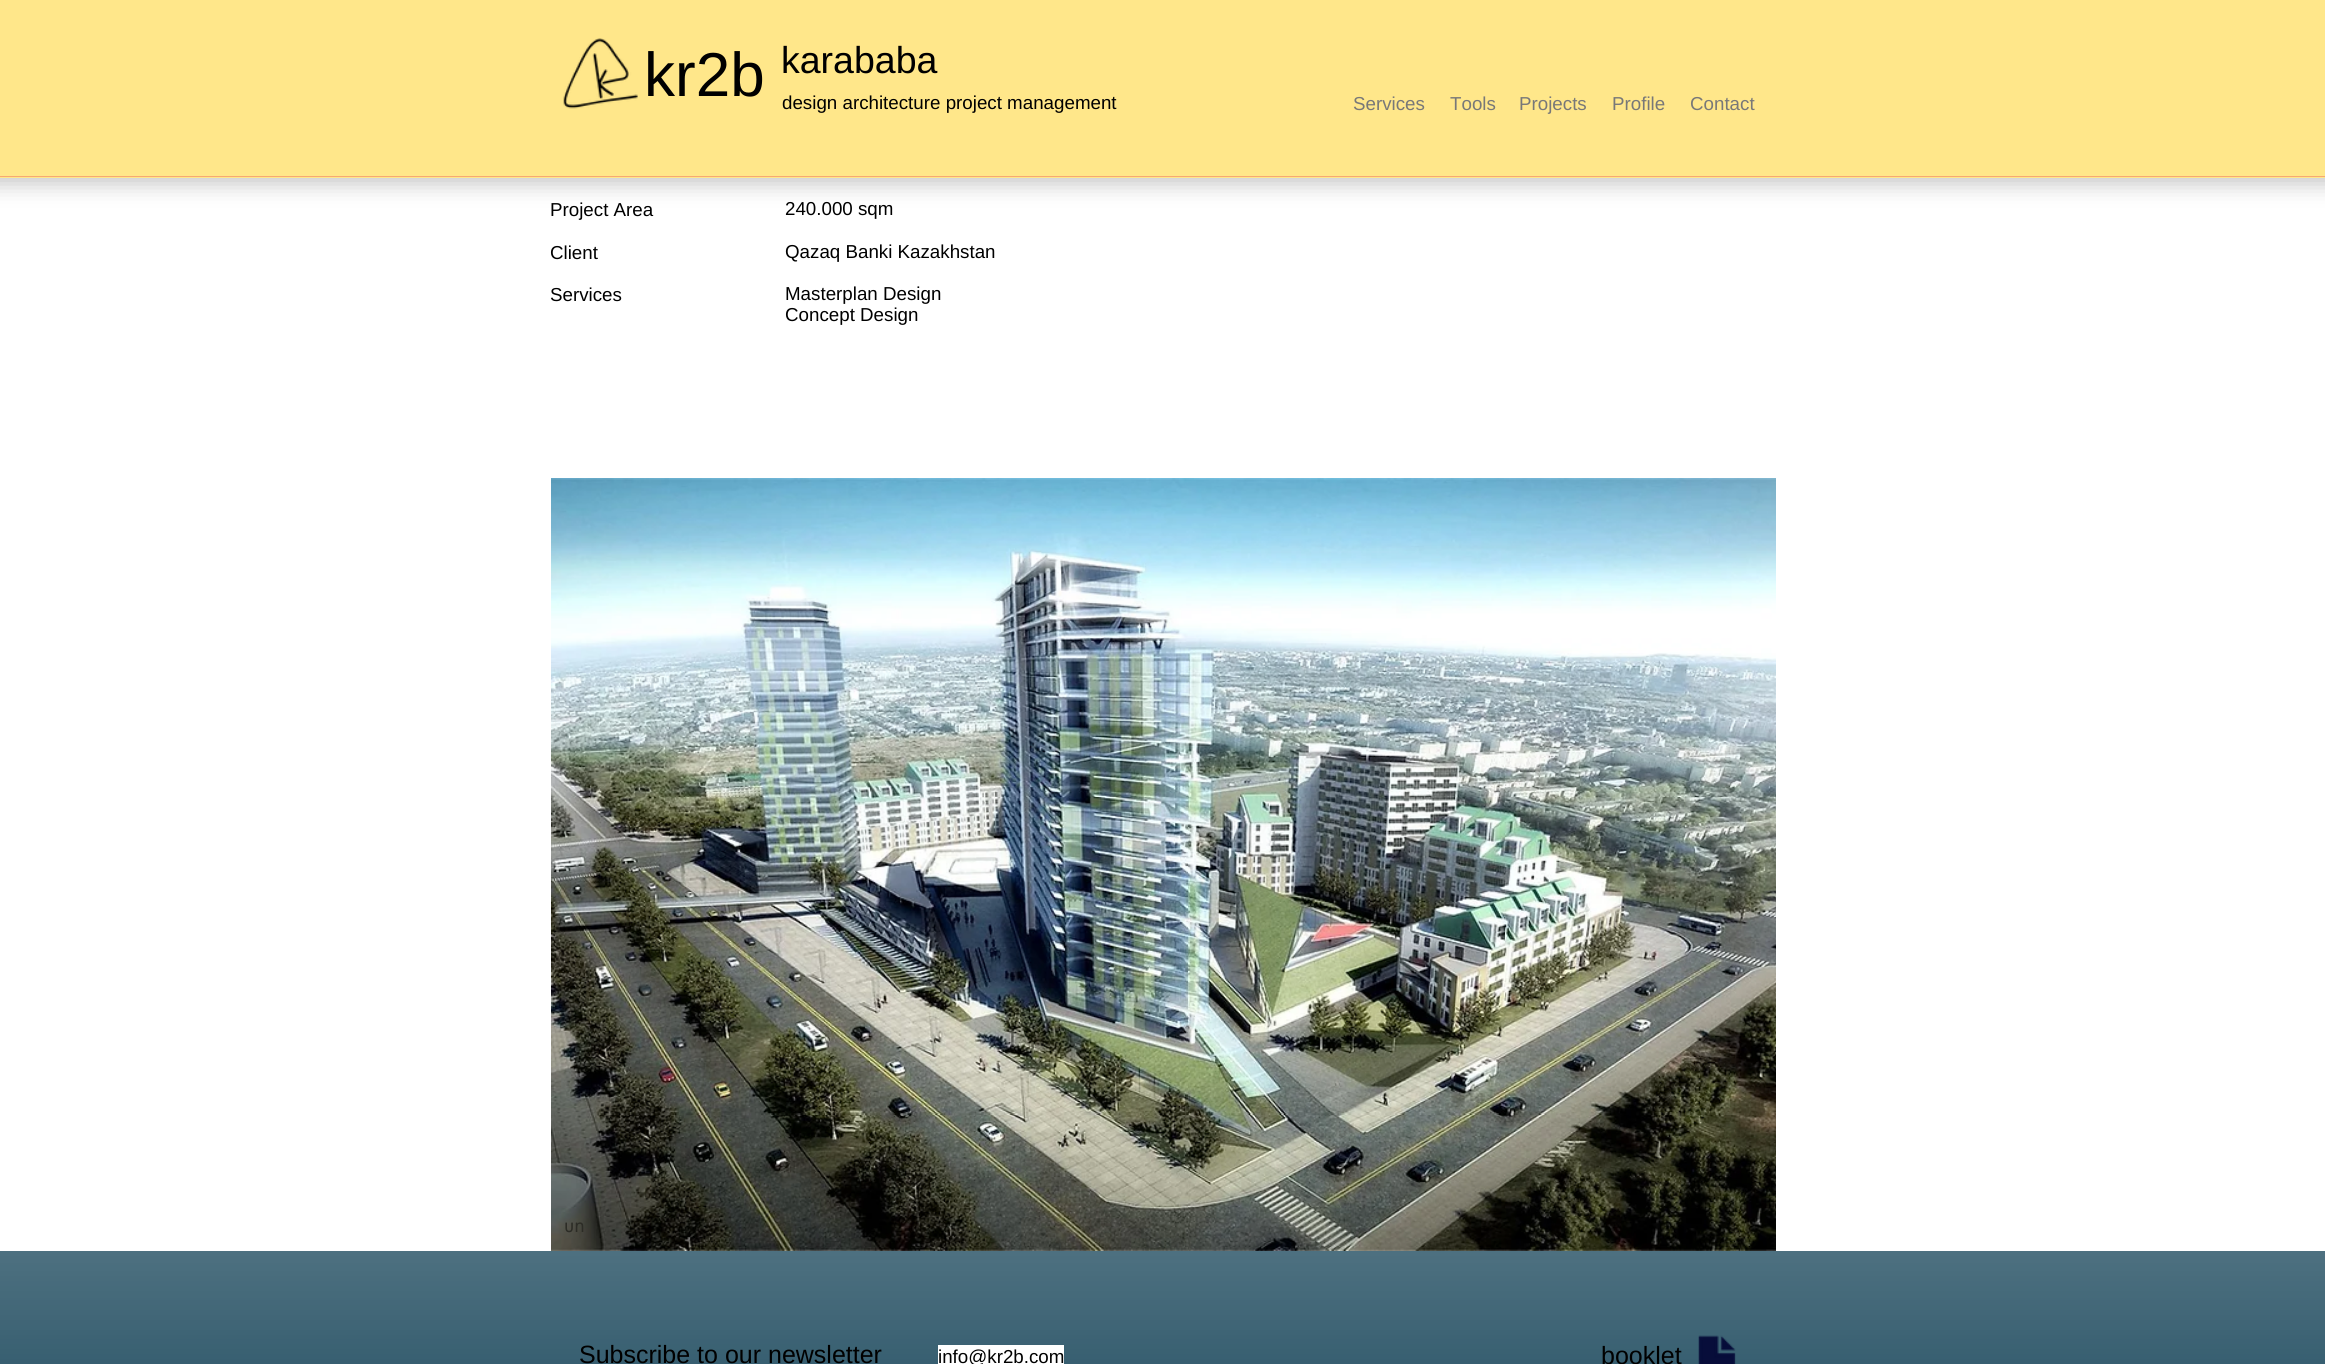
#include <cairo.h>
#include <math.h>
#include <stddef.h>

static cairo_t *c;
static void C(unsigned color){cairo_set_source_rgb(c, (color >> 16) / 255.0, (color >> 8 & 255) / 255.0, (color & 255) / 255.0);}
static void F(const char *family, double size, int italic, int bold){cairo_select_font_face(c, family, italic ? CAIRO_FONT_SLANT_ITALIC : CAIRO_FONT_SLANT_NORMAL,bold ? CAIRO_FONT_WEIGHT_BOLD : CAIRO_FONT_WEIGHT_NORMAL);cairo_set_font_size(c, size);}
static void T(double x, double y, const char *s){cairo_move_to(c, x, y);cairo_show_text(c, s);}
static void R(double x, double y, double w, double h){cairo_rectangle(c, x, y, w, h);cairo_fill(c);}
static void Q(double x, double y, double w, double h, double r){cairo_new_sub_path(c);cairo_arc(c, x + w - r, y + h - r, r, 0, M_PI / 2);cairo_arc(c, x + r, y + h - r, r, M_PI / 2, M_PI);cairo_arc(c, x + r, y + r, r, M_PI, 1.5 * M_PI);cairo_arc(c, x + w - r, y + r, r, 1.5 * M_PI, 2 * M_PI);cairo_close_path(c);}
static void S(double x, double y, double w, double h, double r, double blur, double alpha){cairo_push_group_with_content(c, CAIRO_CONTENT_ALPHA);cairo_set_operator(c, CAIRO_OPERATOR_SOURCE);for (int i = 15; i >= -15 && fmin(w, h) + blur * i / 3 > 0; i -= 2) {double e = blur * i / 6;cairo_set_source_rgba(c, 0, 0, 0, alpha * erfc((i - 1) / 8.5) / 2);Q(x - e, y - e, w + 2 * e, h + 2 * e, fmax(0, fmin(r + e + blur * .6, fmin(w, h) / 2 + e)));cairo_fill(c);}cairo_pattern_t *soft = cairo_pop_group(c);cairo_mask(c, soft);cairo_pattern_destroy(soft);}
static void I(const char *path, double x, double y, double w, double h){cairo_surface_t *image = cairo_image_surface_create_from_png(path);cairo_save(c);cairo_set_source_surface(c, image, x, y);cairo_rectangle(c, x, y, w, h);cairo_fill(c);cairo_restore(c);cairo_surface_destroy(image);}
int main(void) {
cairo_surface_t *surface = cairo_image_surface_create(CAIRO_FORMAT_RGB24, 2325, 1364);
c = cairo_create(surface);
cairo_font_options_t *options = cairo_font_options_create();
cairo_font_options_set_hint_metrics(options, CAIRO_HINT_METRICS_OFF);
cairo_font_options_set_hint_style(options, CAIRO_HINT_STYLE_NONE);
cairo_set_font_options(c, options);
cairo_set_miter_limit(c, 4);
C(0xffffff);
cairo_paint(c);
cairo_save(c);
cairo_set_fill_rule(c,CAIRO_FILL_RULE_EVEN_ODD);
cairo_new_path(c);
cairo_move_to(c,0,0);
cairo_line_to(c,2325,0);
cairo_line_to(c,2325,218);
cairo_line_to(c,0,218);
cairo_close_path(c);
cairo_move_to(c,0,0);
cairo_line_to(c,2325,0);
cairo_line_to(c,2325,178);
cairo_line_to(c,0,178);
cairo_close_path(c);
cairo_clip(c);
C(0x000000);
S(-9,-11,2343,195,0,11,.23);
cairo_restore(c);
cairo_set_source_rgba(c,1,0.871,0.373,0.73);
R(0,0,2325,178);
C(0xf7a972);
R(0,176,2325,1);
I("1.png",563,38,75,71);
F("Liberation Sans",62,0,0);
C(0x000000);
T(644,96,"kr2b");
F("Liberation Sans",37.5,0,0);
T(781,73,"karababa");
F("Liberation Sans",18.75,0,0);
T(782,109,"design architecture project management");
C(0x787878);
T(1353,110,"Services");
T(1450,110,"Tools");
T(1519,110,"Projects");
T(1612,110,"Profile");
T(1690,110,"Contact");
C(0x000000);
T(550,216,"Project Area");
T(550,259,"Client");
T(550,301,"Services");
T(785,215,"240.000 sqm");
T(785,258,"Qazaq Banki Kazakhstan");
T(785,300,"Masterplan Design");
T(785,321,"Concept Design");
I("2.png",551,478,1225,773);
F("futura",20,0,0);
C(0x2c2c26);
T(564,1232,"un");
C(0x103f54);
R(0,1251,2325,113);
I("3.png",0,1250,2325,114);
F("Liberation Sans",25,0,0);
C(0x000000);
T(579,1363,"Subscribe to our newsletter");
C(0xffffff);
R(938,1345,126,19);
F("Liberation Sans",18.75,0,0);
C(0x000000);
T(938,1363,"info@kr2b.com");
F("Liberation Sans",25,0,0);
T(1601,1364,"booklet");
I("4.png",1698,1335,38,29);
cairo_surface_write_to_png(surface, "o.png");
cairo_font_options_destroy(options);
cairo_destroy(c);
cairo_surface_destroy(surface);
return 0;
}
